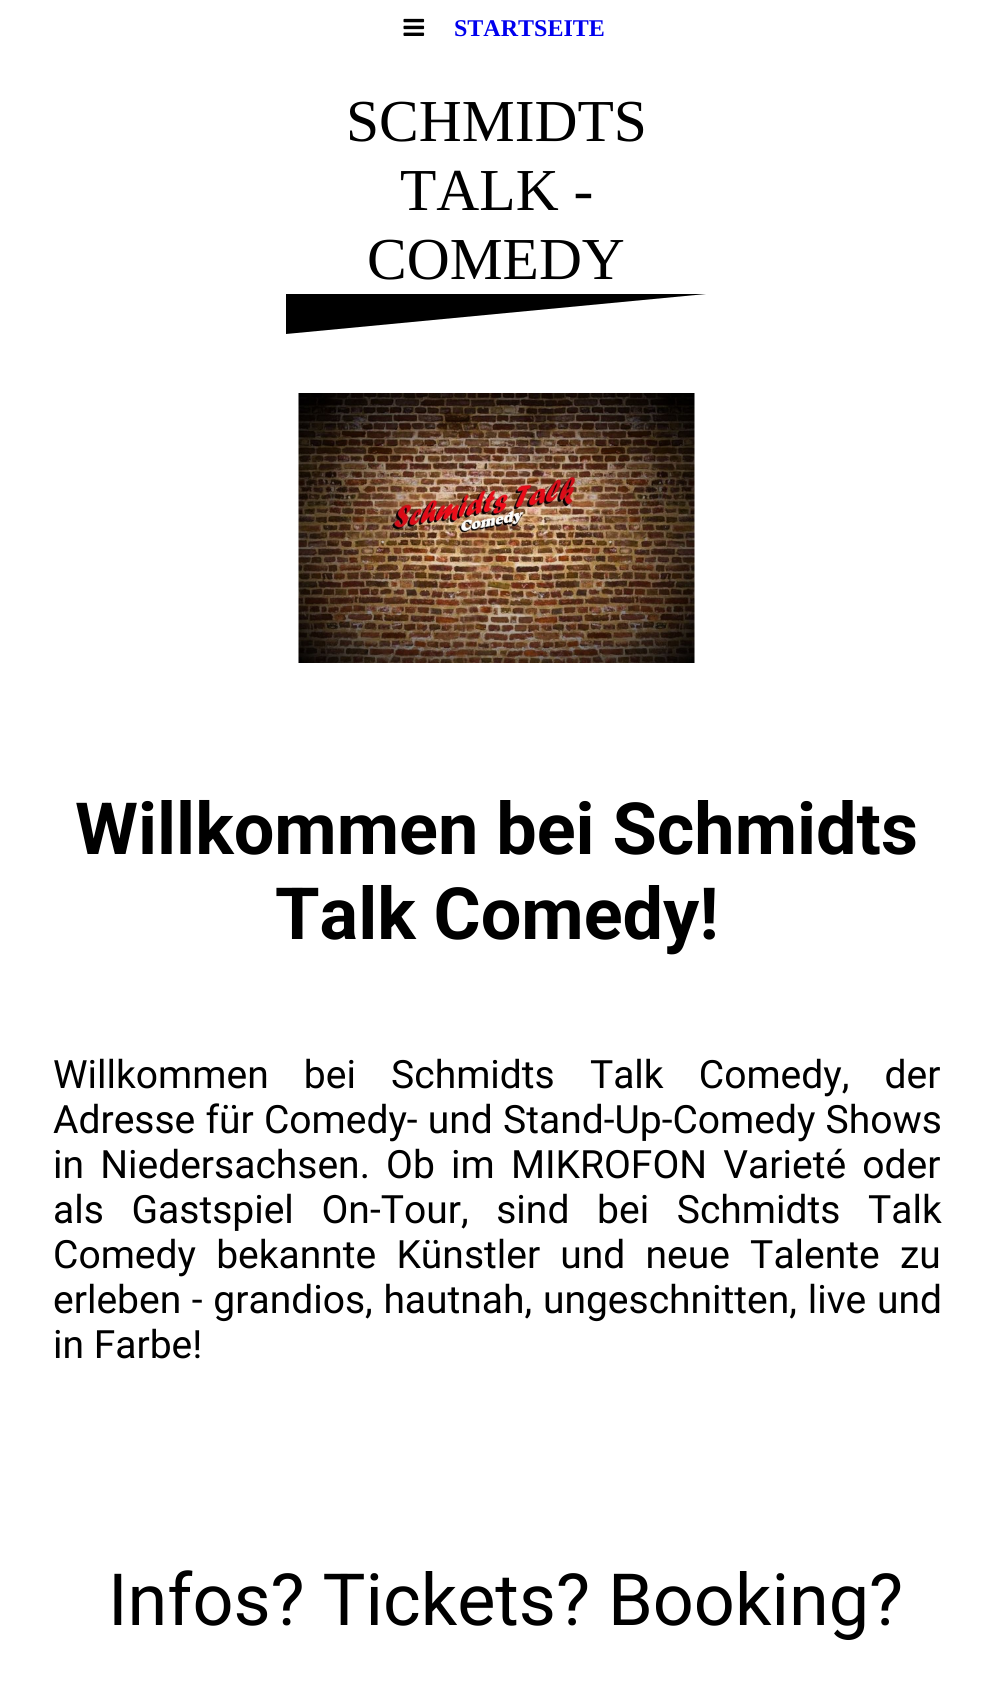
#include <cairo.h>
#include <math.h>
#include <stddef.h>

static cairo_t *c;
static void C(unsigned color){cairo_set_source_rgb(c, (color >> 16) / 255.0, (color >> 8 & 255) / 255.0, (color & 255) / 255.0);}
static void F(const char *family, double size, int italic, int bold){cairo_select_font_face(c, family, italic ? CAIRO_FONT_SLANT_ITALIC : CAIRO_FONT_SLANT_NORMAL,bold ? CAIRO_FONT_WEIGHT_BOLD : CAIRO_FONT_WEIGHT_NORMAL);cairo_set_font_size(c, size);}
static void T(double x, double y, const char *s){cairo_move_to(c, x, y);cairo_show_text(c, s);}
static void L(double x, double y, const char *s, double letter, double word){cairo_move_to(c, x, y);while (*s) {char ch[5] = {0};int n = 0;do ch[n++] = *s++; while ((*s & 0xC0) == 0x80);cairo_show_text(c, ch);cairo_rel_move_to(c, letter + word * (*ch == ' '), 0);}}
static void I(const char *path, double x, double y, double w, double h){cairo_surface_t *image = cairo_image_surface_create_from_png(path);cairo_save(c);cairo_set_source_surface(c, image, x, y);cairo_rectangle(c, x, y, w, h);cairo_fill(c);cairo_restore(c);cairo_surface_destroy(image);}
int main(void) {
cairo_surface_t *surface = cairo_image_surface_create(CAIRO_FORMAT_RGB24, 992, 1693);
c = cairo_create(surface);
cairo_font_options_t *options = cairo_font_options_create();
cairo_font_options_set_hint_metrics(options, CAIRO_HINT_METRICS_OFF);
cairo_font_options_set_hint_style(options, CAIRO_HINT_STYLE_NONE);
cairo_set_font_options(c, options);
cairo_set_miter_limit(c, 4);
C(0xffffff);
cairo_paint(c);
I("1.png",403,18,22,18);
F("Liberation Serif",24,0,1);
C(0x0000ee);
T(454,36,"STARTSEITE");
F("Liberation Serif",59.5,0,0);
C(0x000000);
T(346,141,"SCHMIDTS");
T(400,210,"TALK -");
T(367,279,"COMEDY");
cairo_new_path(c);
cairo_move_to(c,286,334);
cairo_line_to(c,286,294);
cairo_line_to(c,706,294);
cairo_close_path(c);
cairo_fill(c);
I("2.png",298,393,397,270);
F("Roboto",72,0,1);
T(75,854,"Willkommen bei Schmidts");
T(275,939,"Talk Comedy!");
F("Roboto",39,0,0);
L(53,1088,"Willkommen bei Schmidts Talk Comedy, der",0,25.5);
L(53,1133,"Adresse für Comedy- und Stand-Up-Comedy Shows",0,.5);
L(53,1178,"in Niedersachsen. Ob im MIKROFON Varieté oder",0,6.5);
L(53,1223,"als Gastspiel On-Tour, sind bei Schmidts Talk",0,18);
L(53,1268,"Comedy bekannte Künstler und neue Talente zu",0,10.5);
L(53,1313,"erleben - grandios, hautnah, ungeschnitten, live und",0,1);
T(53,1358,"in Farbe!");
F("Roboto",72,0,0);
T(108,1625,"Infos? Tickets? Booking?");
cairo_surface_write_to_png(surface, "o.png");
cairo_font_options_destroy(options);
cairo_destroy(c);
cairo_surface_destroy(surface);
return 0;
}
